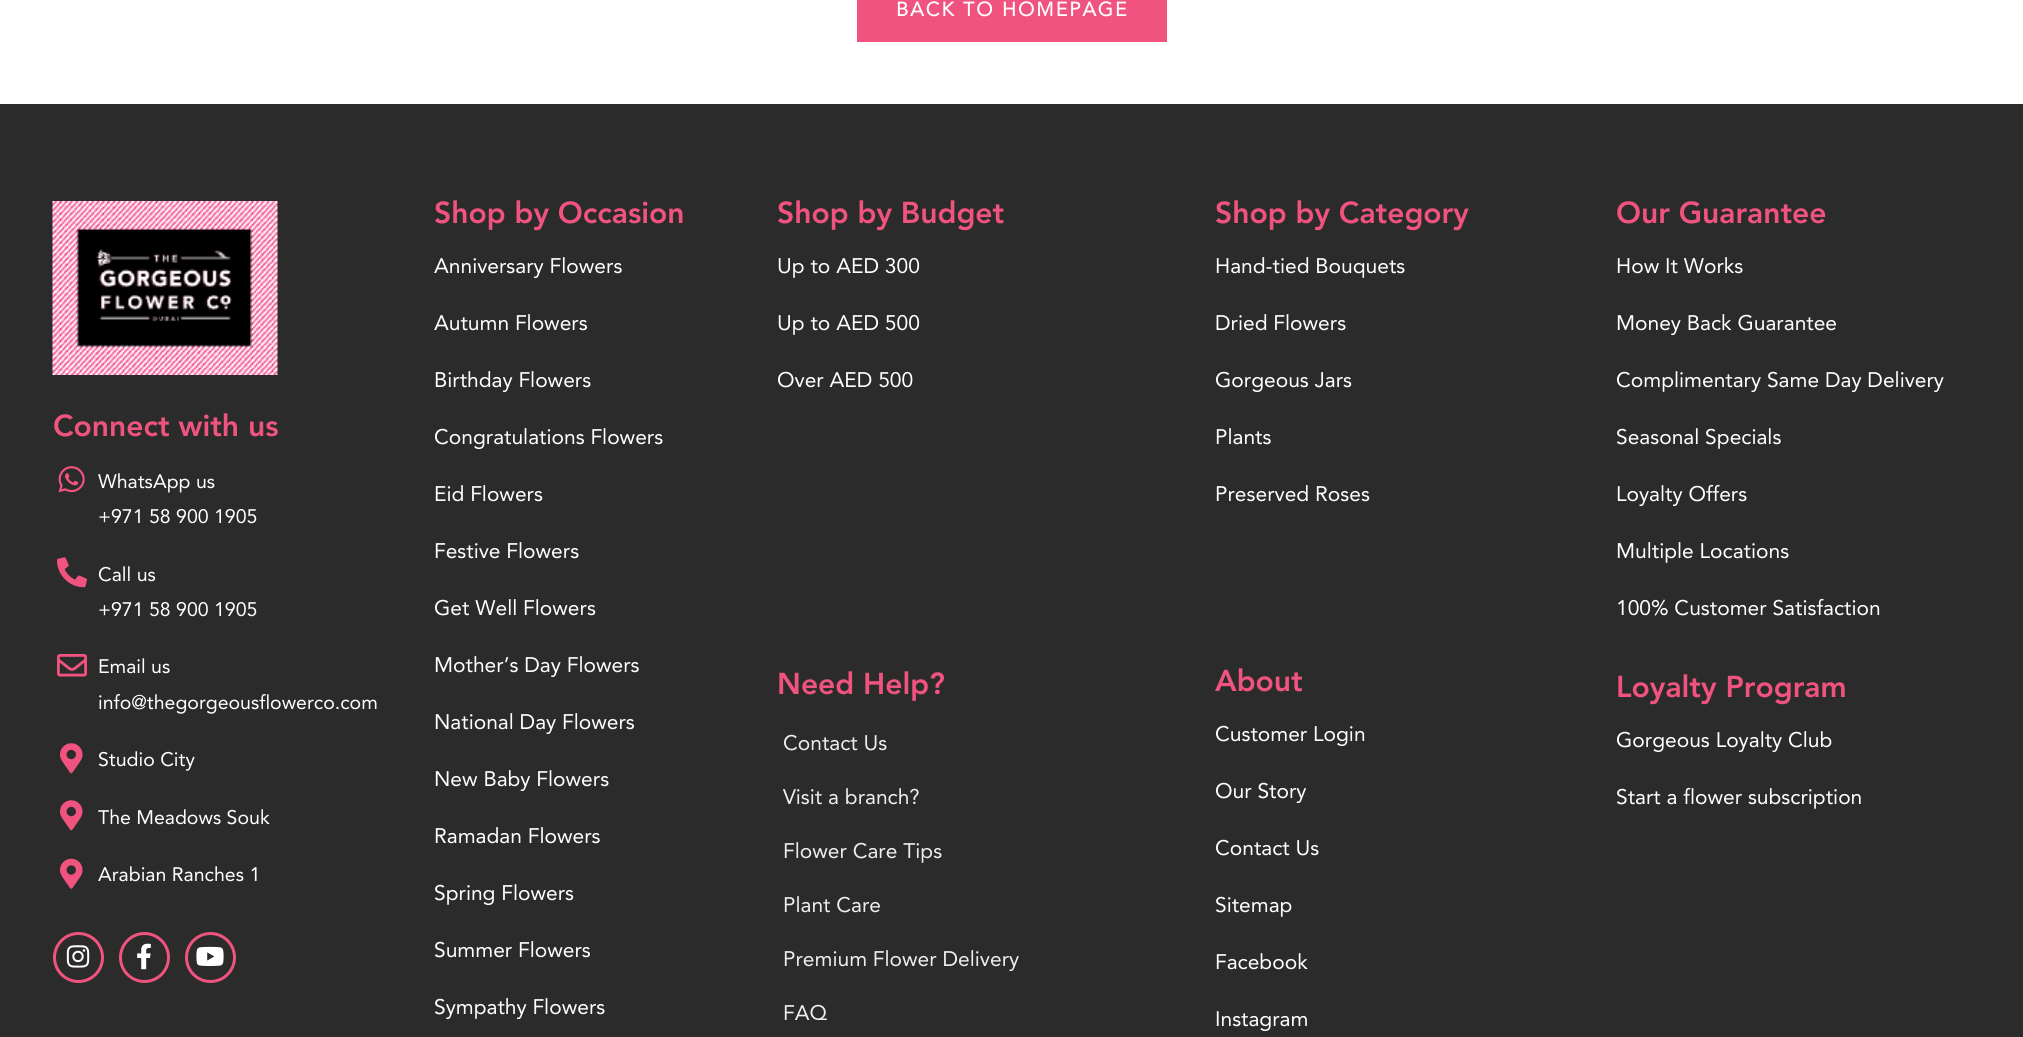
#include <cairo.h>
#include <math.h>
#include <stddef.h>

static cairo_t *c;
static void C(unsigned color){cairo_set_source_rgb(c, (color >> 16) / 255.0, (color >> 8 & 255) / 255.0, (color & 255) / 255.0);}
static void F(const char *family, double size, int italic, int bold){cairo_select_font_face(c, family, italic ? CAIRO_FONT_SLANT_ITALIC : CAIRO_FONT_SLANT_NORMAL,bold ? CAIRO_FONT_WEIGHT_BOLD : CAIRO_FONT_WEIGHT_NORMAL);cairo_set_font_size(c, size);}
static void T(double x, double y, const char *s){cairo_move_to(c, x, y);cairo_show_text(c, s);}
static void L(double x, double y, const char *s, double letter, double word){cairo_move_to(c, x, y);while (*s) {char ch[5] = {0};int n = 0;do ch[n++] = *s++; while ((*s & 0xC0) == 0x80);cairo_show_text(c, ch);cairo_rel_move_to(c, letter + word * (*ch == ' '), 0);}}
static void R(double x, double y, double w, double h){cairo_rectangle(c, x, y, w, h);cairo_fill(c);}
static void I(const char *path, double x, double y, double w, double h){cairo_surface_t *image = cairo_image_surface_create_from_png(path);cairo_save(c);cairo_set_source_surface(c, image, x, y);cairo_rectangle(c, x, y, w, h);cairo_fill(c);cairo_restore(c);cairo_surface_destroy(image);}
int main(void) {
cairo_surface_t *surface = cairo_image_surface_create(CAIRO_FORMAT_RGB24, 2023, 1037);
c = cairo_create(surface);
cairo_font_options_t *options = cairo_font_options_create();
cairo_font_options_set_hint_metrics(options, CAIRO_HINT_METRICS_OFF);
cairo_font_options_set_hint_style(options, CAIRO_HINT_STYLE_NONE);
cairo_set_font_options(c, options);
cairo_set_miter_limit(c, 4);
C(0xffffff);
cairo_paint(c);
C(0xf0537e);
R(857,0,310,42);
F("Avenir",19.5,0,1);
C(0xffffff);
L(896,16,"BACK TO HOMEPAGE",2,0);
C(0x2b2b2b);
R(0,104,2023,933);
I("1.png",52,201,226,174);
F("Avenir Black",30,0,0);
C(0xf0537e);
T(53,436,"Connect with us");
I("2.png",58,466,27,27);
F("Avenir",19.5,0,0);
C(0xffffff);
T(98,488,"WhatsApp us");
T(98,523,"+971 58 900 1905");
I("3.png",57,557,30,31);
T(98,581,"Call us");
T(98,616,"+971 58 900 1905");
I("4.png",57,654,30,23);
T(98,673,"Email us");
T(98,709,"info@thegorgeousflowerco.com");
I("5.png",60,743,23,31);
T(98,766,"Studio City");
I("5.png",60,800,23,31);
T(98,824,"The Meadows Souk");
I("6.png",60,858,23,31);
T(98,881,"Arabian Ranches 1");
cairo_new_path(c);
cairo_arc(c,78.5,957.5,24,0,2 * M_PI);
C(0xf0537e);
cairo_set_line_width(c,3);
cairo_stroke(c);
I("7.png",66,945,24,23);
cairo_arc(c,144.5,957.5,24,0,2 * M_PI);
cairo_stroke(c);
I("8.png",137,943,14,27);
cairo_arc(c,210.5,957.5,24,0,2 * M_PI);
cairo_stroke(c);
I("9.png",196,946,28,20);
F("Avenir Black",30,0,0);
T(434,223,"Shop by Occasion");
F("Avenir",21,0,0);
C(0xffffff);
T(434,273,"Anniversary Flowers");
T(434,330,"Autumn Flowers");
T(434,387,"Birthday Flowers");
T(434,444,"Congratulations Flowers");
T(434,501,"Eid Flowers");
T(434,558,"Festive Flowers");
T(434,615,"Get Well Flowers");
T(434,672,"Mother’s Day Flowers");
T(434,729,"National Day Flowers");
T(434,786,"New Baby Flowers");
T(434,843,"Ramadan Flowers");
T(434,900,"Spring Flowers");
T(434,957,"Summer Flowers");
T(434,1014,"Sympathy Flowers");
F("Avenir Black",30,0,0);
C(0xf0537e);
T(777,223,"Shop by Budget");
F("Avenir",21,0,0);
C(0xffffff);
T(777,273,"Up to AED 300");
T(777,330,"Up to AED 500");
T(777,387,"Over AED 500");
F("Avenir Black",30,0,0);
C(0xf0537e);
T(777,694,"Need Help?");
F("Avenir",21,0,0);
C(0xeeeeee);
T(783,750,"Contact Us");
T(783,804,"Visit a branch?");
T(783,858,"Flower Care Tips");
T(783,912,"Plant Care");
T(783,966,"Premium Flower Delivery");
T(783,1020,"FAQ");
F("Avenir Black",30,0,0);
C(0xf0537e);
T(1215,223,"Shop by Category");
F("Avenir",21,0,0);
C(0xffffff);
T(1215,273,"Hand-tied Bouquets");
T(1215,330,"Dried Flowers");
T(1215,387,"Gorgeous Jars");
T(1215,444,"Plants");
T(1215,501,"Preserved Roses");
F("Avenir Black",30,0,0);
C(0xf0537e);
T(1215,691,"About");
F("Avenir",21,0,0);
C(0xffffff);
T(1215,741,"Customer Login");
T(1215,798,"Our Story");
T(1215,855,"Contact Us");
T(1215,912,"Sitemap");
T(1215,969,"Facebook");
T(1215,1026,"Instagram");
F("Avenir Black",30,0,0);
C(0xf0537e);
T(1616,223,"Our Guarantee");
F("Avenir",21,0,0);
C(0xffffff);
T(1616,273,"How It Works");
T(1616,330,"Money Back Guarantee");
T(1616,387,"Complimentary Same Day Delivery");
T(1616,444,"Seasonal Specials");
T(1616,501,"Loyalty Offers");
T(1616,558,"Multiple Locations");
T(1616,615,"100% Customer Satisfaction");
F("Avenir Black",30,0,0);
C(0xf0537e);
T(1616,697,"Loyalty Program");
F("Avenir",21,0,0);
C(0xffffff);
T(1616,747,"Gorgeous Loyalty Club");
T(1616,804,"Start a flower subscription");
cairo_surface_write_to_png(surface, "o.png");
cairo_font_options_destroy(options);
cairo_destroy(c);
cairo_surface_destroy(surface);
return 0;
}
